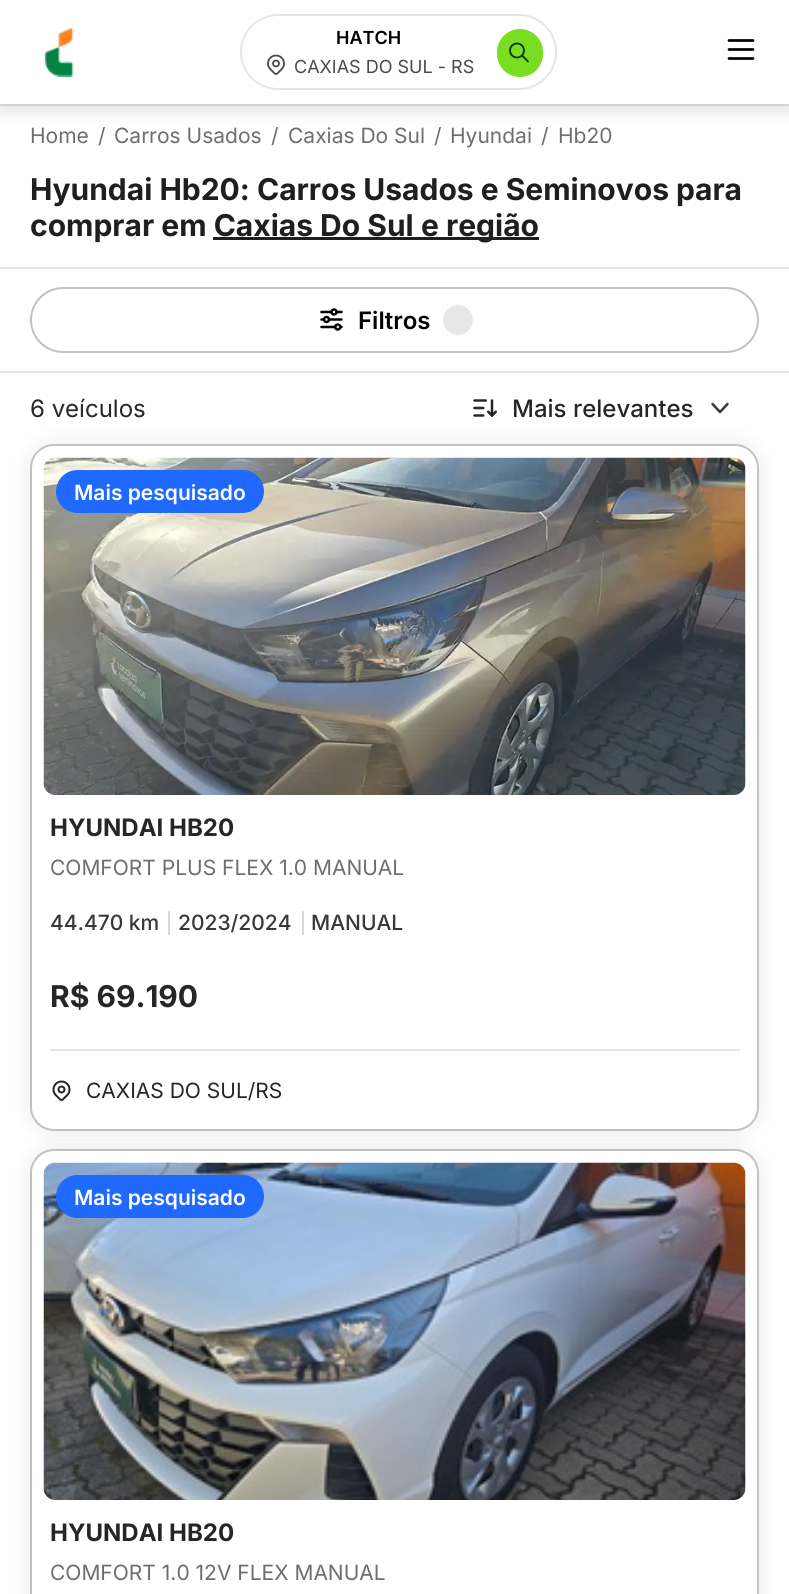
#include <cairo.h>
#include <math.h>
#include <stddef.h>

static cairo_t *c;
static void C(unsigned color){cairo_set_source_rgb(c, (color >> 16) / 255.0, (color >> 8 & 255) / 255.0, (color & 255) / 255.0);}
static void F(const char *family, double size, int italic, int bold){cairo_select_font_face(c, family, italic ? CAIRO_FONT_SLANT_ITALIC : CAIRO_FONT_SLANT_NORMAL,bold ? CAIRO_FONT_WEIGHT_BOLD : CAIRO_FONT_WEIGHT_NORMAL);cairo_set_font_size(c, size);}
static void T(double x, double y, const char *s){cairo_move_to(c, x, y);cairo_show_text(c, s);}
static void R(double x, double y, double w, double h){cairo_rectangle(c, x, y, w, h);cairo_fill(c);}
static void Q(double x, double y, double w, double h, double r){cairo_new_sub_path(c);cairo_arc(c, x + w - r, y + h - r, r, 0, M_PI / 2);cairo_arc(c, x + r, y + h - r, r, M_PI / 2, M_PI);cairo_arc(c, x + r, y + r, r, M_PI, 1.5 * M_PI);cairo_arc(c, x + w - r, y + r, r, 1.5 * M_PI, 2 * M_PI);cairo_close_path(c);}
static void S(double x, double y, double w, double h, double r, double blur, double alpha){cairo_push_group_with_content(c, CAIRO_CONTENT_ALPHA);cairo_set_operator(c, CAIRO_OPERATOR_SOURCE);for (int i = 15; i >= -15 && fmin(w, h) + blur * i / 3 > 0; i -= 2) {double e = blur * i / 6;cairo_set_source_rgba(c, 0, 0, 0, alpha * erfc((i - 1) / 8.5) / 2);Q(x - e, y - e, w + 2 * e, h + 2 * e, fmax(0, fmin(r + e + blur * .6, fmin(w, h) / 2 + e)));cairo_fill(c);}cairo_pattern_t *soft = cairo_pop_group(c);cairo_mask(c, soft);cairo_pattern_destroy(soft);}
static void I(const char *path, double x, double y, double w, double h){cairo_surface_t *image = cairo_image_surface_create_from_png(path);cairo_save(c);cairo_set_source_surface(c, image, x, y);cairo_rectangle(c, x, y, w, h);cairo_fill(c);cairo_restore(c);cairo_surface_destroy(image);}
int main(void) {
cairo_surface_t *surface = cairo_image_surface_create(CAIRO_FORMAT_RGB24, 789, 1594);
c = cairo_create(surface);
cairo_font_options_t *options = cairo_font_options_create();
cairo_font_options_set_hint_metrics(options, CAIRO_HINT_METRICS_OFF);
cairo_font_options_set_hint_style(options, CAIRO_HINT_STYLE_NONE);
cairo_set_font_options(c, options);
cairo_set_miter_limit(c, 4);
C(0xffffff);
cairo_paint(c);
C(0xe6e6e6);
R(0,104,789,2);
C(0x262626);
S(-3,3,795,110,0,7.5,.12);
C(0xffffff);
R(0,0,789,104);
I("1.png",44,28,30,49);
Q(241,15,315,74,37);
C(0xe6e6e6);
cairo_stroke(c);
F("Inter SemiBold",18,0,0);
C(0x000000);
T(336,44,"HATCH");
I("2.png",267,54,18,21);
F("Inter",18,0,0);
C(0x4a4a4a);
T(294,73,"CAXIAS DO SUL - RS");
C(0x78de1f);
Q(497,29,46,48,23);
cairo_fill(c);
I("3.png",509,42,20,21);
I("4.png",727,39,28,21);
C(0xe6e6e6);
R(0,267,789,2);
F("Inter",21,0,0);
C(0x6e6e6e);
T(30,143,"Home");
T(98,143,"/");
T(114,143,"Carros Usados");
T(271,143,"/");
T(288,143,"Caxias Do Sul");
T(434,143,"/");
T(450,143,"Hyundai");
T(541,143,"/");
T(558,143,"Hb20");
F("Inter",30,0,1);
C(0x1f1f1f);
T(30,200,"Hyundai Hb20: Carros Usados e Seminovos para");
T(30,236,"comprar em Caxias Do Sul");
R(213,237,326,3);
T(421,236,"e região");
C(0xe6e6e6);
R(0,371,789,2);
Q(31,288,727,64,32);
C(0xc2c2c2);
cairo_stroke(c);
I("5.png",320,308,23,23);
F("Inter SemiBold",24,0,0);
C(0x000000);
T(358,329,"Filtros");
C(0xe7e7e7);
cairo_new_path(c);
cairo_arc(c,458,320,15,0,2 * M_PI);
cairo_fill(c);
F("Inter",24,0,0);
C(0x262626);
T(30,417,"6 veículos");
C(0x000000);
S(30,444,729,687,24,12,.08);
I("6.png",473,399,24,18);
F("Inter Medium",24,0,0);
C(0x262626);
T(512,417,"Mais relevantes");
cairo_new_path(c);
cairo_move_to(c,712.5,404);
cairo_line_to(c,720,412);
cairo_line_to(c,727.5,404);
C(0x383838);
cairo_set_line_width(c,2.5);
cairo_set_line_cap(c,CAIRO_LINE_CAP_ROUND);
cairo_set_line_join(c,CAIRO_LINE_JOIN_ROUND);
cairo_stroke(c);
C(0xffffff);
Q(31,445,727,685,23);
cairo_fill_preserve(c);
C(0xc2c2c2);
cairo_set_line_width(c,2);
cairo_set_line_cap(c,CAIRO_LINE_CAP_BUTT);
cairo_set_line_join(c,CAIRO_LINE_JOIN_MITER);
cairo_stroke(c);
I("7.png",43,457,703,338);
C(0x1f69ff);
Q(56,470,208,43,21.5);
cairo_fill(c);
F("Inter SemiBold",21,0,0);
C(0xffffff);
T(74,500,"Mais pesquisado");
F("Inter",24,0,1);
C(0x262626);
T(50,836,"HYUNDAI HB20");
F("Inter",21,0,0);
C(0x6e6e6e);
T(50,875,"COMFORT PLUS FLEX 1.0 MANUAL");
F("Inter Medium",21,0,0);
C(0x383838);
T(50,930,"44.470 km");
C(0xd6d6d6);
R(168,911,2,24);
C(0x383838);
T(178,930,"2023/2024");
C(0xd6d6d6);
R(302,911,2,24);
C(0x383838);
T(311,930,"MANUAL");
F("Inter",30,0,1);
C(0x262626);
T(50,1007,"R$ 69.190");
C(0xe6e6e6);
R(50,1049,690,2);
I("8.png",52,1080,19,21);
F("Inter",21,0,0);
C(0x262626);
T(86,1098,"CAXIAS DO SUL/RS");
C(0x000000);
S(30,1149,729,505,24,12,.08);
C(0xffffff);
Q(31,1150,727,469,23);
cairo_fill_preserve(c);
C(0xc2c2c2);
cairo_stroke(c);
I("9.png",43,1162,703,338);
C(0x1f69ff);
Q(56,1175,208,43,21.5);
cairo_fill(c);
F("Inter SemiBold",21,0,0);
C(0xffffff);
T(74,1205,"Mais pesquisado");
F("Inter",24,0,1);
C(0x262626);
T(50,1541,"HYUNDAI HB20");
F("Inter",21,0,0);
C(0x6e6e6e);
T(50,1580,"COMFORT 1.0 12V FLEX MANUAL");
cairo_surface_write_to_png(surface, "o.png");
cairo_font_options_destroy(options);
cairo_destroy(c);
cairo_surface_destroy(surface);
return 0;
}
